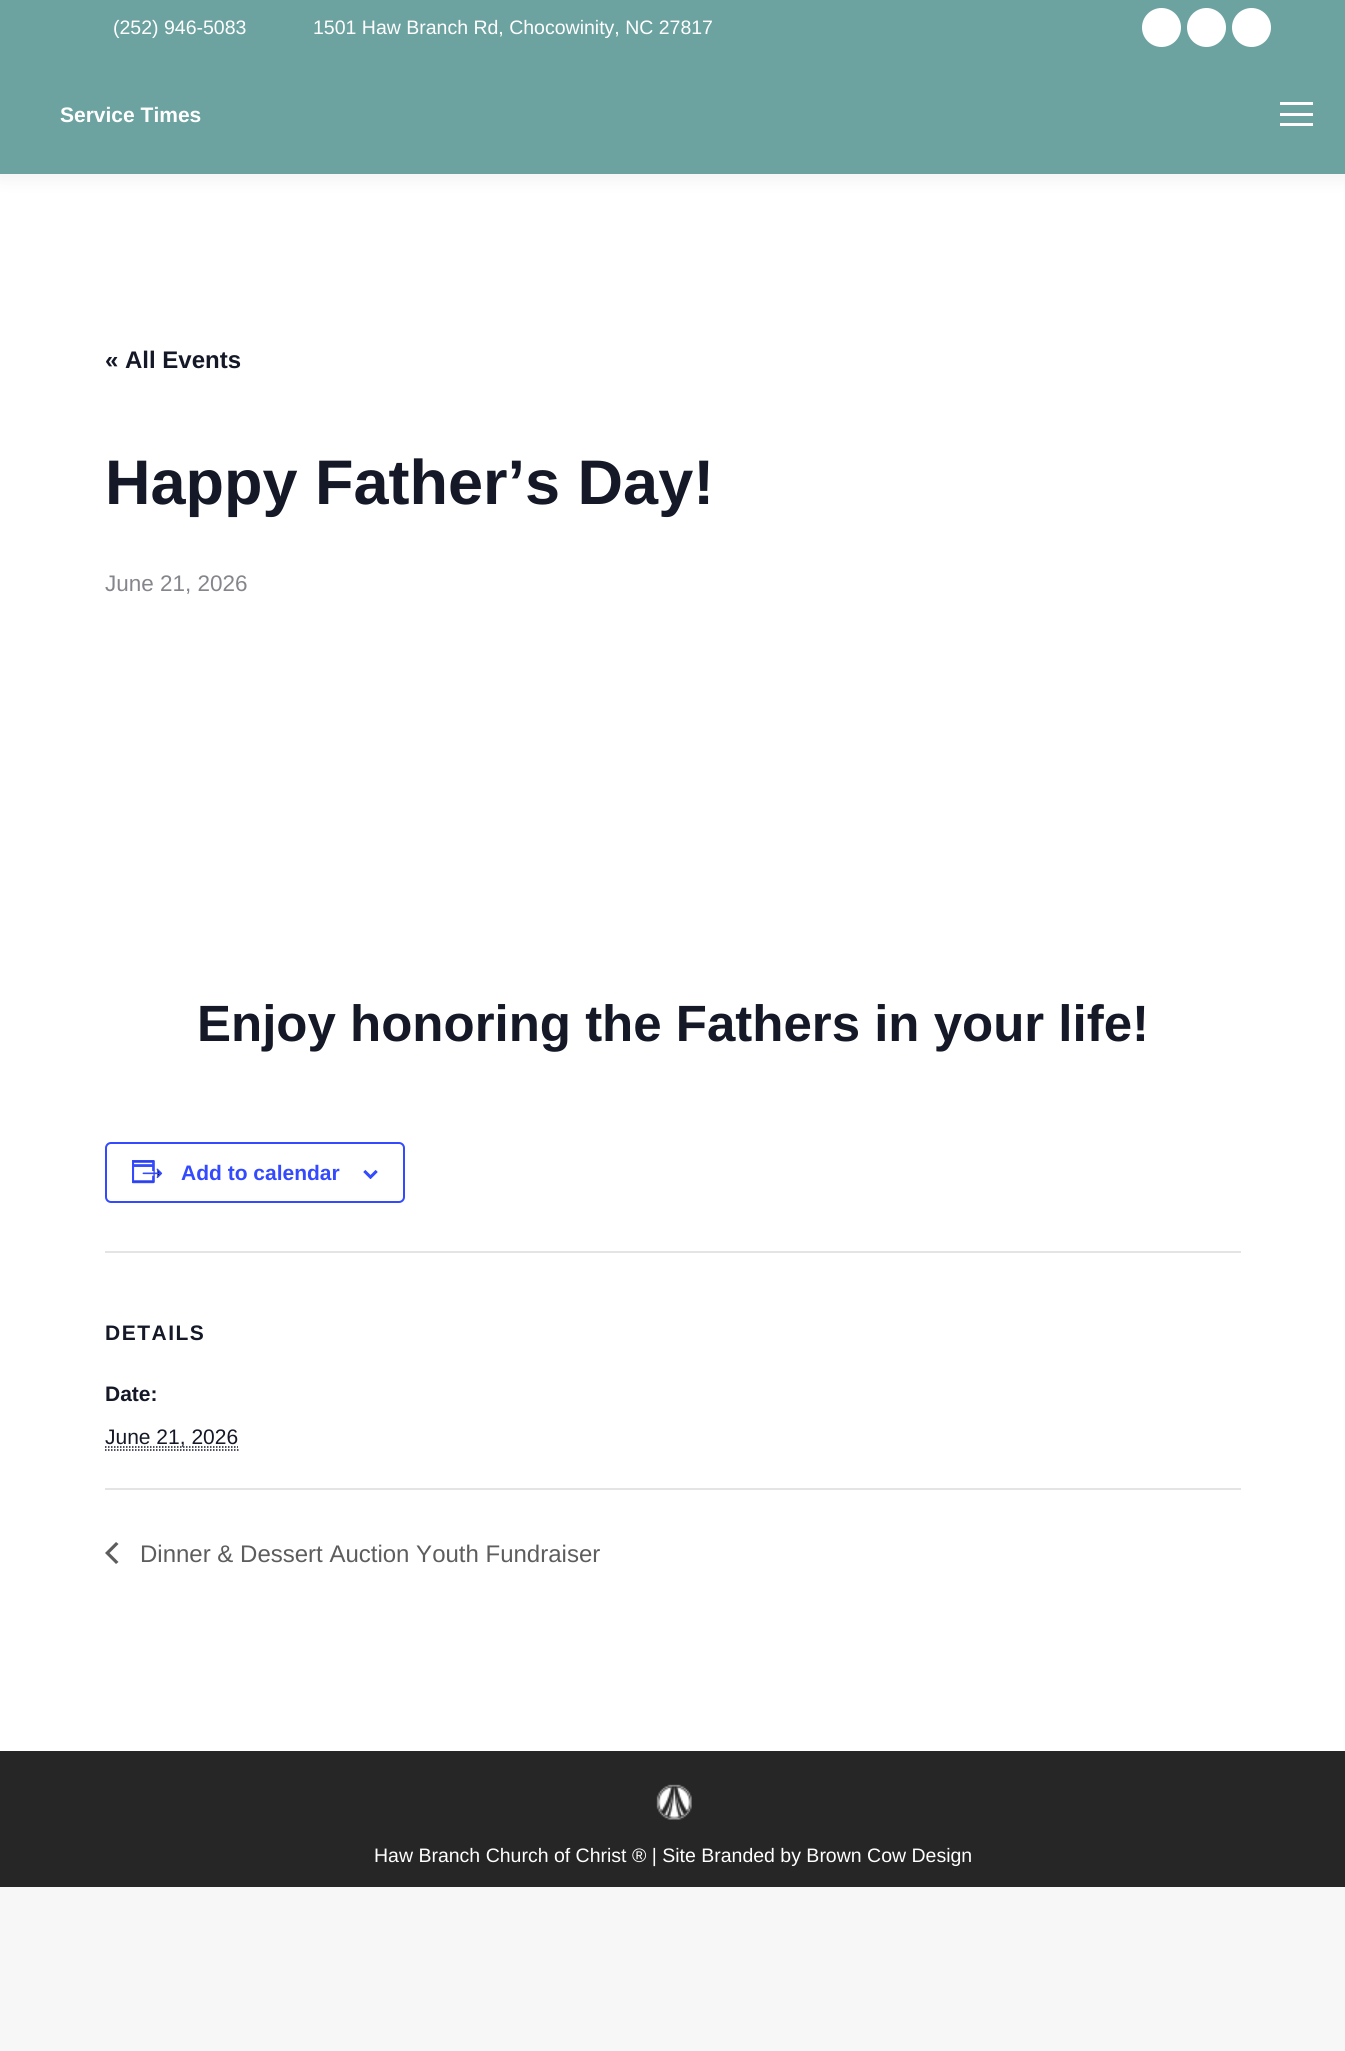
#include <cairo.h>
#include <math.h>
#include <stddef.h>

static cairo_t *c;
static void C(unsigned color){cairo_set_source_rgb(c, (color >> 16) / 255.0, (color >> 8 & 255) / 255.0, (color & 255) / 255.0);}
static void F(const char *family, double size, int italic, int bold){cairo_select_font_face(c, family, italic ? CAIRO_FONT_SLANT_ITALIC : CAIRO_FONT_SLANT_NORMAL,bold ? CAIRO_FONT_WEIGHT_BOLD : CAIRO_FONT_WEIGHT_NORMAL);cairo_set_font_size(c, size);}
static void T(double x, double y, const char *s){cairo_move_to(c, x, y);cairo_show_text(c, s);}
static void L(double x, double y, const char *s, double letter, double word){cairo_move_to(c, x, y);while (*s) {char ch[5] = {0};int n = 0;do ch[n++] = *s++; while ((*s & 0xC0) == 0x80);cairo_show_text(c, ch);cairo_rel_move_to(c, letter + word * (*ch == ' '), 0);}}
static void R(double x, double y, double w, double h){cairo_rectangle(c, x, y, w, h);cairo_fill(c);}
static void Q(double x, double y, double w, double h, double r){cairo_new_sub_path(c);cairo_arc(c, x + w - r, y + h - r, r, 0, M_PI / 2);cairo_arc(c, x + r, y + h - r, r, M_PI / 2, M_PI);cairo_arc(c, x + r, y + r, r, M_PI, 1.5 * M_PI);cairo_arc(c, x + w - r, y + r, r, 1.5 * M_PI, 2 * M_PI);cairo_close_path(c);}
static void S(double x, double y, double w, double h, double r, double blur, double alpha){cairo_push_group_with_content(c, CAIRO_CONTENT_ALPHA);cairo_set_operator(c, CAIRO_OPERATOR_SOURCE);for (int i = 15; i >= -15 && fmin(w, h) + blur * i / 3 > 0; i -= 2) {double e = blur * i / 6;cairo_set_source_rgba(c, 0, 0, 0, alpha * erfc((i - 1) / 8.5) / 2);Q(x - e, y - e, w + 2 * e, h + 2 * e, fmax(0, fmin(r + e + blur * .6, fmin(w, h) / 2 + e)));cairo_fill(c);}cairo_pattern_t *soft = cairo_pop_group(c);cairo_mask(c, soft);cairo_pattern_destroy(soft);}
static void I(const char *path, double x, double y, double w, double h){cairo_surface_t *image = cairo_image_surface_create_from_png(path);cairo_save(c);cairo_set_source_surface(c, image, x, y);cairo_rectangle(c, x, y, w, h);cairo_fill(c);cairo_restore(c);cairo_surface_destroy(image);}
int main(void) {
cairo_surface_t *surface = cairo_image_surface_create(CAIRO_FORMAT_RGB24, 1345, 2051);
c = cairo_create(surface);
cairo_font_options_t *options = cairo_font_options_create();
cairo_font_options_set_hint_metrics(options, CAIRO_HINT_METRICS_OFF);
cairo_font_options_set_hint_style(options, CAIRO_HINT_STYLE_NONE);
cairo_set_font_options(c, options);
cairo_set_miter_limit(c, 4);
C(0xf7f7f7);
cairo_paint(c);
C(0xffffff);
R(0,174,1345,1577);
C(0x000000);
S(-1,-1,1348,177,0,11,.07);
C(0x6ca3a1);
R(0,0,1345,174);
F("Liberation Sans",19.5,0,0);
C(0xffffff);
T(113,34,"(252) 946-5083");
T(313,34,"1501 Haw Branch Rd, Chocowinity, NC 27817");
cairo_new_path(c);
cairo_arc(c,1161.5,27.5,19.5,0,2 * M_PI);
cairo_fill(c);
cairo_arc(c,1206.5,27.5,19.5,0,2 * M_PI);
cairo_fill(c);
cairo_arc(c,1251.5,27.5,19.5,0,2 * M_PI);
cairo_fill(c);
F("Liberation Sans",21,0,1);
T(60,122,"Service Times");
R(1280,102,33,3);
R(1280,113,33,3);
R(1280,123,33,3);
F("Liberation Sans",24,0,1);
C(0x141827);
T(105,368,"« All Events");
F("Liberation Sans",63,0,1);
T(105,504,"Happy Father’s Day!");
F("Liberation Sans",22.5,0,0);
C(0x85868c);
T(105,591,"June 21, 2026");
F("Liberation Sans",51,0,1);
C(0x141827);
T(197,1041,"Enjoy honoring the Fathers in your life!");
Q(106,1143,298,59,5);
C(0x334aff);
cairo_stroke(c);
I("1.png",132,1160,31,24);
F("Liberation Sans",21,0,1);
T(181,1180,"Add to calendar");
I("2.png",363,1170,15,9);
C(0xe4e4e4);
R(105,1251,1136,2);
C(0x141827);
L(105,1340,"DETAILS",1.5,0);
T(105,1401,"Date:");
cairo_new_path(c);
cairo_move_to(c,105,1447);
cairo_line_to(c,238,1447);
cairo_set_line_width(c,1.5);
cairo_set_dash(c,(double[]){1.5,1.5},2,0);
cairo_stroke(c);
F("Liberation Sans",21,0,0);
T(105,1444,"June 21, 2026");
cairo_new_path(c);
cairo_move_to(c,105,1450);
cairo_line_to(c,238.5,1450);
cairo_stroke(c);
C(0xe4e4e4);
R(105,1488,1136,2);
C(0x5d5d5d);
cairo_new_path(c);
cairo_move_to(c,118.5,1562);
cairo_line_to(c,116,1564);
cairo_line_to(c,105,1553);
cairo_line_to(c,116,1542);
cairo_line_to(c,118.5,1544);
cairo_line_to(c,109.5,1553);
cairo_close_path(c);
cairo_fill(c);
F("Liberation Sans",24,0,0);
T(140,1562,"Dinner & Dessert Auction Youth Fundraiser");
C(0x262626);
R(0,1751,1345,136);
I("3.png",656,1784,36,36);
F("Liberation Sans",19.5,0,0);
C(0xffffff);
T(374,1862,"Haw Branch Church of Christ ® | Site Branded by Brown Cow Design");
cairo_surface_write_to_png(surface, "o.png");
cairo_font_options_destroy(options);
cairo_destroy(c);
cairo_surface_destroy(surface);
return 0;
}
